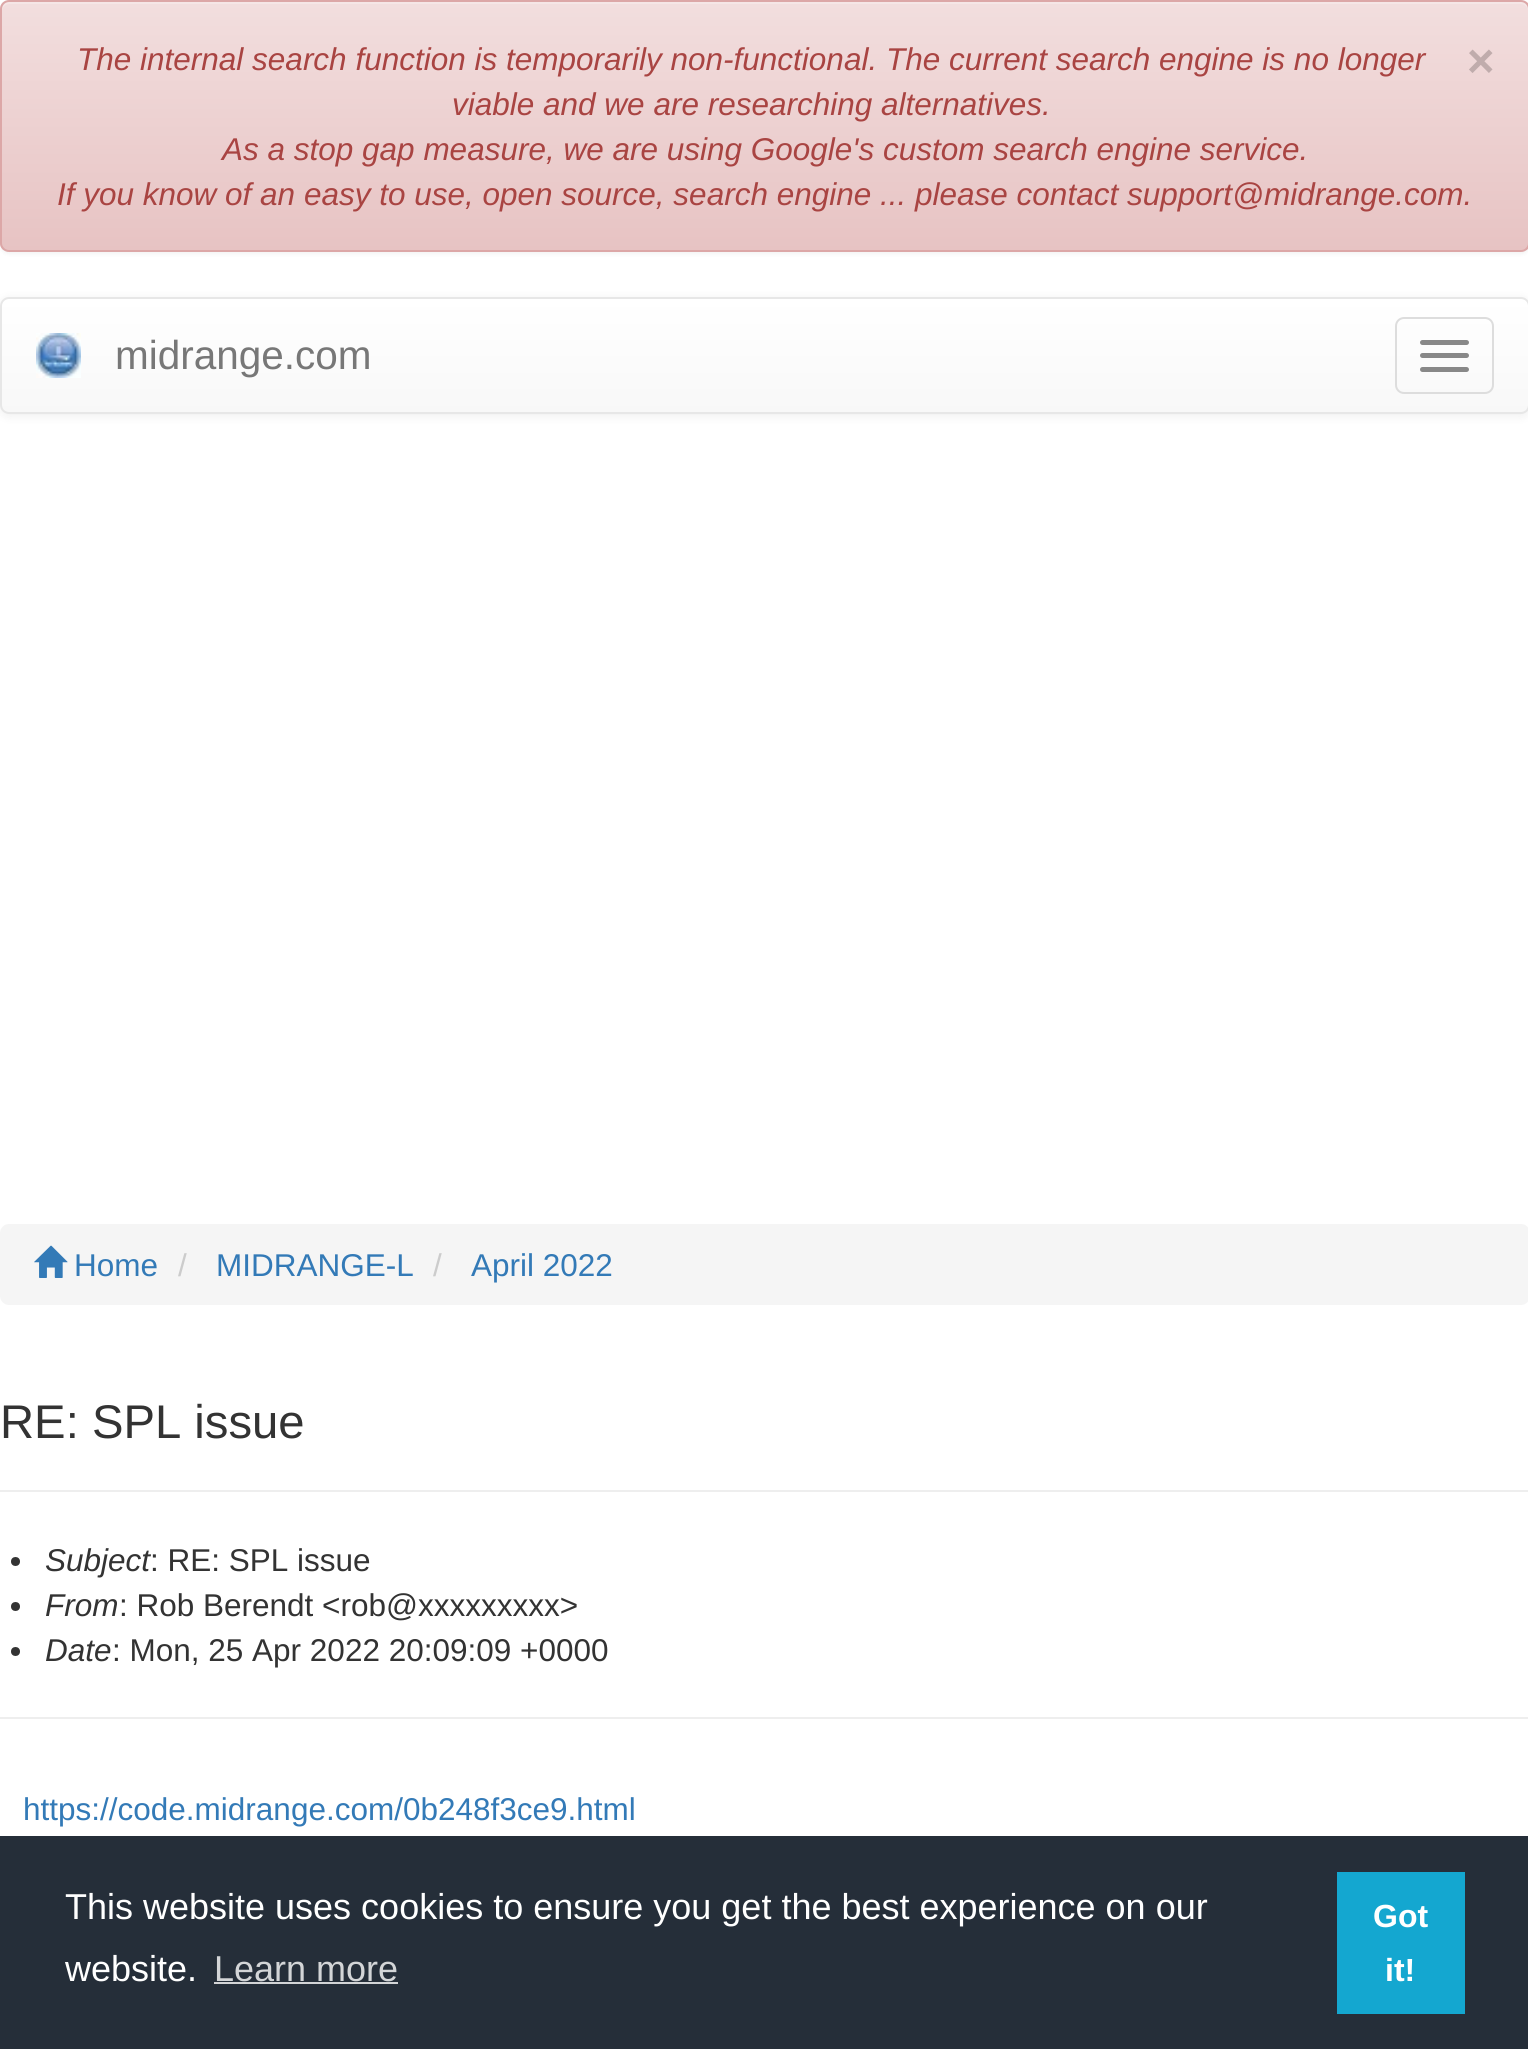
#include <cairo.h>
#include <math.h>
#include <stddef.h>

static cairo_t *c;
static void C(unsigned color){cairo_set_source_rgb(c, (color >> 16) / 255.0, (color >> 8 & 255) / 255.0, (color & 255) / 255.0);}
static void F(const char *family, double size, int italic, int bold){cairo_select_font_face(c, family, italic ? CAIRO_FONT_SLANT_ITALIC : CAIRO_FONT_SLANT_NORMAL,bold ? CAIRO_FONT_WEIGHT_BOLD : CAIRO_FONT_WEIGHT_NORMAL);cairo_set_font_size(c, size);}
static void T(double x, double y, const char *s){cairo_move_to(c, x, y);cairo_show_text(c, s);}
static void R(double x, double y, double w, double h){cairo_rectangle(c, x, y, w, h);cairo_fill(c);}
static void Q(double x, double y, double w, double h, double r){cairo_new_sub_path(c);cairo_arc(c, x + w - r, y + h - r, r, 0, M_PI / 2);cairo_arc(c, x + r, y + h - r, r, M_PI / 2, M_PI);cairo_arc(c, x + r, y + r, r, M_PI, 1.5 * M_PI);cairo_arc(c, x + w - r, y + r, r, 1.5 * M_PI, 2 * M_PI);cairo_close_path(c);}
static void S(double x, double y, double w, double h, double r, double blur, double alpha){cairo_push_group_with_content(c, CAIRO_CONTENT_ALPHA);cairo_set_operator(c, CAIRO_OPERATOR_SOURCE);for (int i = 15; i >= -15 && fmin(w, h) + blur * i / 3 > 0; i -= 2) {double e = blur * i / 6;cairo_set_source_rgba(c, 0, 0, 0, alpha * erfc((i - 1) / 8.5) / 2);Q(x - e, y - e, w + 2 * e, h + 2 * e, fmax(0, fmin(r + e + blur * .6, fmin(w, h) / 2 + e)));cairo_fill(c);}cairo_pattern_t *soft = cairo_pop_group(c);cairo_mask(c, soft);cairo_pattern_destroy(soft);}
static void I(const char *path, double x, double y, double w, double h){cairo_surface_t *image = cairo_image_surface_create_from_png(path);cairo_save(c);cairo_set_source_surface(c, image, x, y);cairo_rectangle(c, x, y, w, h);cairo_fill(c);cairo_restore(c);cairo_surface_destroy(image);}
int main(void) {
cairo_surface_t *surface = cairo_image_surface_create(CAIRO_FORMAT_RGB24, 1528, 2049);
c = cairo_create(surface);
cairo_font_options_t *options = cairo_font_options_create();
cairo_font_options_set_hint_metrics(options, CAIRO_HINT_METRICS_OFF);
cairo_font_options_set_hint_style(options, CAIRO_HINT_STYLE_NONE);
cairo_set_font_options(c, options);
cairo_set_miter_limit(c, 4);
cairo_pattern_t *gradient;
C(0xffffff);
cairo_paint(c);
C(0x000000);
S(0,2,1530,252,9,2,.05);
cairo_save(c);
Q(0,0,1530,252,9);
cairo_clip(c);
gradient = cairo_pattern_create_linear(765,2.2,765,250);
cairo_pattern_add_color_stop_rgba(gradient,0,0.949,0.871,0.871,1);
cairo_pattern_add_color_stop_rgba(gradient,1,0.906,0.765,0.765,1);
cairo_set_source(c,gradient);
cairo_pattern_destroy(gradient);
R(0,2,1528,248);
cairo_restore(c);
C(0xf5e6e6);
cairo_new_path(c);
cairo_move_to(c,9,4);
cairo_line_to(c,1521,4);
cairo_curve_to(c,1525,4,1528,8,1528,11);
cairo_curve_to(c,1528,7,1526,2,1521,2);
cairo_line_to(c,9,2);
cairo_curve_to(c,4,2,2,7,2,11);
cairo_curve_to(c,2,8,5,4,9,4);
cairo_close_path(c);
cairo_fill(c);
Q(1,1,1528,250,8);
C(0xdca7a7);
cairo_stroke(c);
F("Liberation Sans",31.5,1,0);
C(0xa94442);
T(77,70,"The internal search function is temporarily non-functional. The current search engine is no longer");
F("Liberation Sans",47.25,1,1);
C(0xc0acac);
T(1466,77,"×");
F("Liberation Sans",31.5,1,0);
C(0xa94442);
T(452,115,"viable and we are researching alternatives.");
T(222,160,"As a stop gap measure, we are using Google's custom search engine service.");
T(57,205,"If you know of an easy to use, open source, search engine ... please contact support@midrange.com.");
C(0x000000);
S(0,299,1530,117,9,5.5,.07);
cairo_save(c);
Q(0,297,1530,117,9);
cairo_clip(c);
gradient = cairo_pattern_create_linear(765,299,765,412);
cairo_pattern_add_color_stop_rgba(gradient,0,1,1,1,1);
cairo_pattern_add_color_stop_rgba(gradient,1,0.973,0.973,0.973,1);
cairo_set_source(c,gradient);
cairo_pattern_destroy(gradient);
R(0,299,1528,113);
cairo_restore(c);
Q(1,298,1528,115,8);
C(0xe7e7e7);
cairo_stroke(c);
I("1.png",36,333,45,45);
F("Liberation Sans",40.5,0,0);
C(0x777777);
T(115,369,"midrange.com");
Q(1396,318,97,75,8);
C(0xdddddd);
cairo_stroke(c);
C(0x888888);
Q(1420,340,49,5,2.5);
cairo_fill(c);
Q(1420,353,49,5,2.5);
cairo_fill(c);
Q(1420,367,49,5,2.5);
cairo_fill(c);
C(0xf5f5f5);
Q(0,1224,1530,81,9);
cairo_fill(c);
I("2.png",34,1245,34,33);
F("Liberation Sans",31.5,0,0);
C(0x337ab7);
T(74,1276,"Home");
C(0xcccccc);
T(178,1276,"/");
C(0x337ab7);
T(216,1276,"MIDRANGE-L");
C(0xcccccc);
T(433,1276,"/");
C(0x337ab7);
T(471,1276,"April 2022");
C(0xeeeeee);
R(0,1490,1528,2);
F("Liberation Sans",47.25,0,0);
C(0x333333);
T(0,1438,"RE: SPL issue");
cairo_new_path(c);
cairo_arc(c,15.5,1561.5,4.5,0,2 * M_PI);
cairo_fill(c);
F("Liberation Sans",31.5,1,0);
T(45,1571,"Subject");
F("Liberation Sans",31.5,0,0);
T(150,1571,": RE: SPL issue");
cairo_new_path(c);
cairo_arc(c,15.5,1606.5,4.5,0,2 * M_PI);
cairo_fill(c);
F("Liberation Sans",31.5,1,0);
T(45,1616,"From");
F("Liberation Sans",31.5,0,0);
T(119,1616,": Rob Berendt <rob@xxxxxxxxx>");
cairo_new_path(c);
cairo_arc(c,15.5,1651.5,4.5,0,2 * M_PI);
cairo_fill(c);
F("Liberation Sans",31.5,1,0);
T(45,1661,"Date");
F("Liberation Sans",31.5,0,0);
T(112,1661,": Mon, 25 Apr 2022 20:09:09 +0000");
C(0xeeeeee);
R(0,1717,1528,2);
C(0x337ab7);
T(23,1820,"https://code.midrange.com/0b248f3ce9.html");
C(0x252e39);
R(0,1836,1528,213);
F("Liberation Sans",36,0,0);
C(0xffffff);
T(65,1919,"This website uses cookies to ensure you get the best experience on our");
T(65,1981,"website.");
C(0xd3d5d7);
T(214,1981,"Learn more");
R(214,1982,184,2);
C(0x14a7d0);
R(1337,1872,128,142);
F("Liberation Sans",32,0,1);
C(0xffffff);
T(1373,1927,"Got");
T(1385,1981,"it!");
cairo_surface_write_to_png(surface, "o.png");
cairo_font_options_destroy(options);
cairo_destroy(c);
cairo_surface_destroy(surface);
return 0;
}
